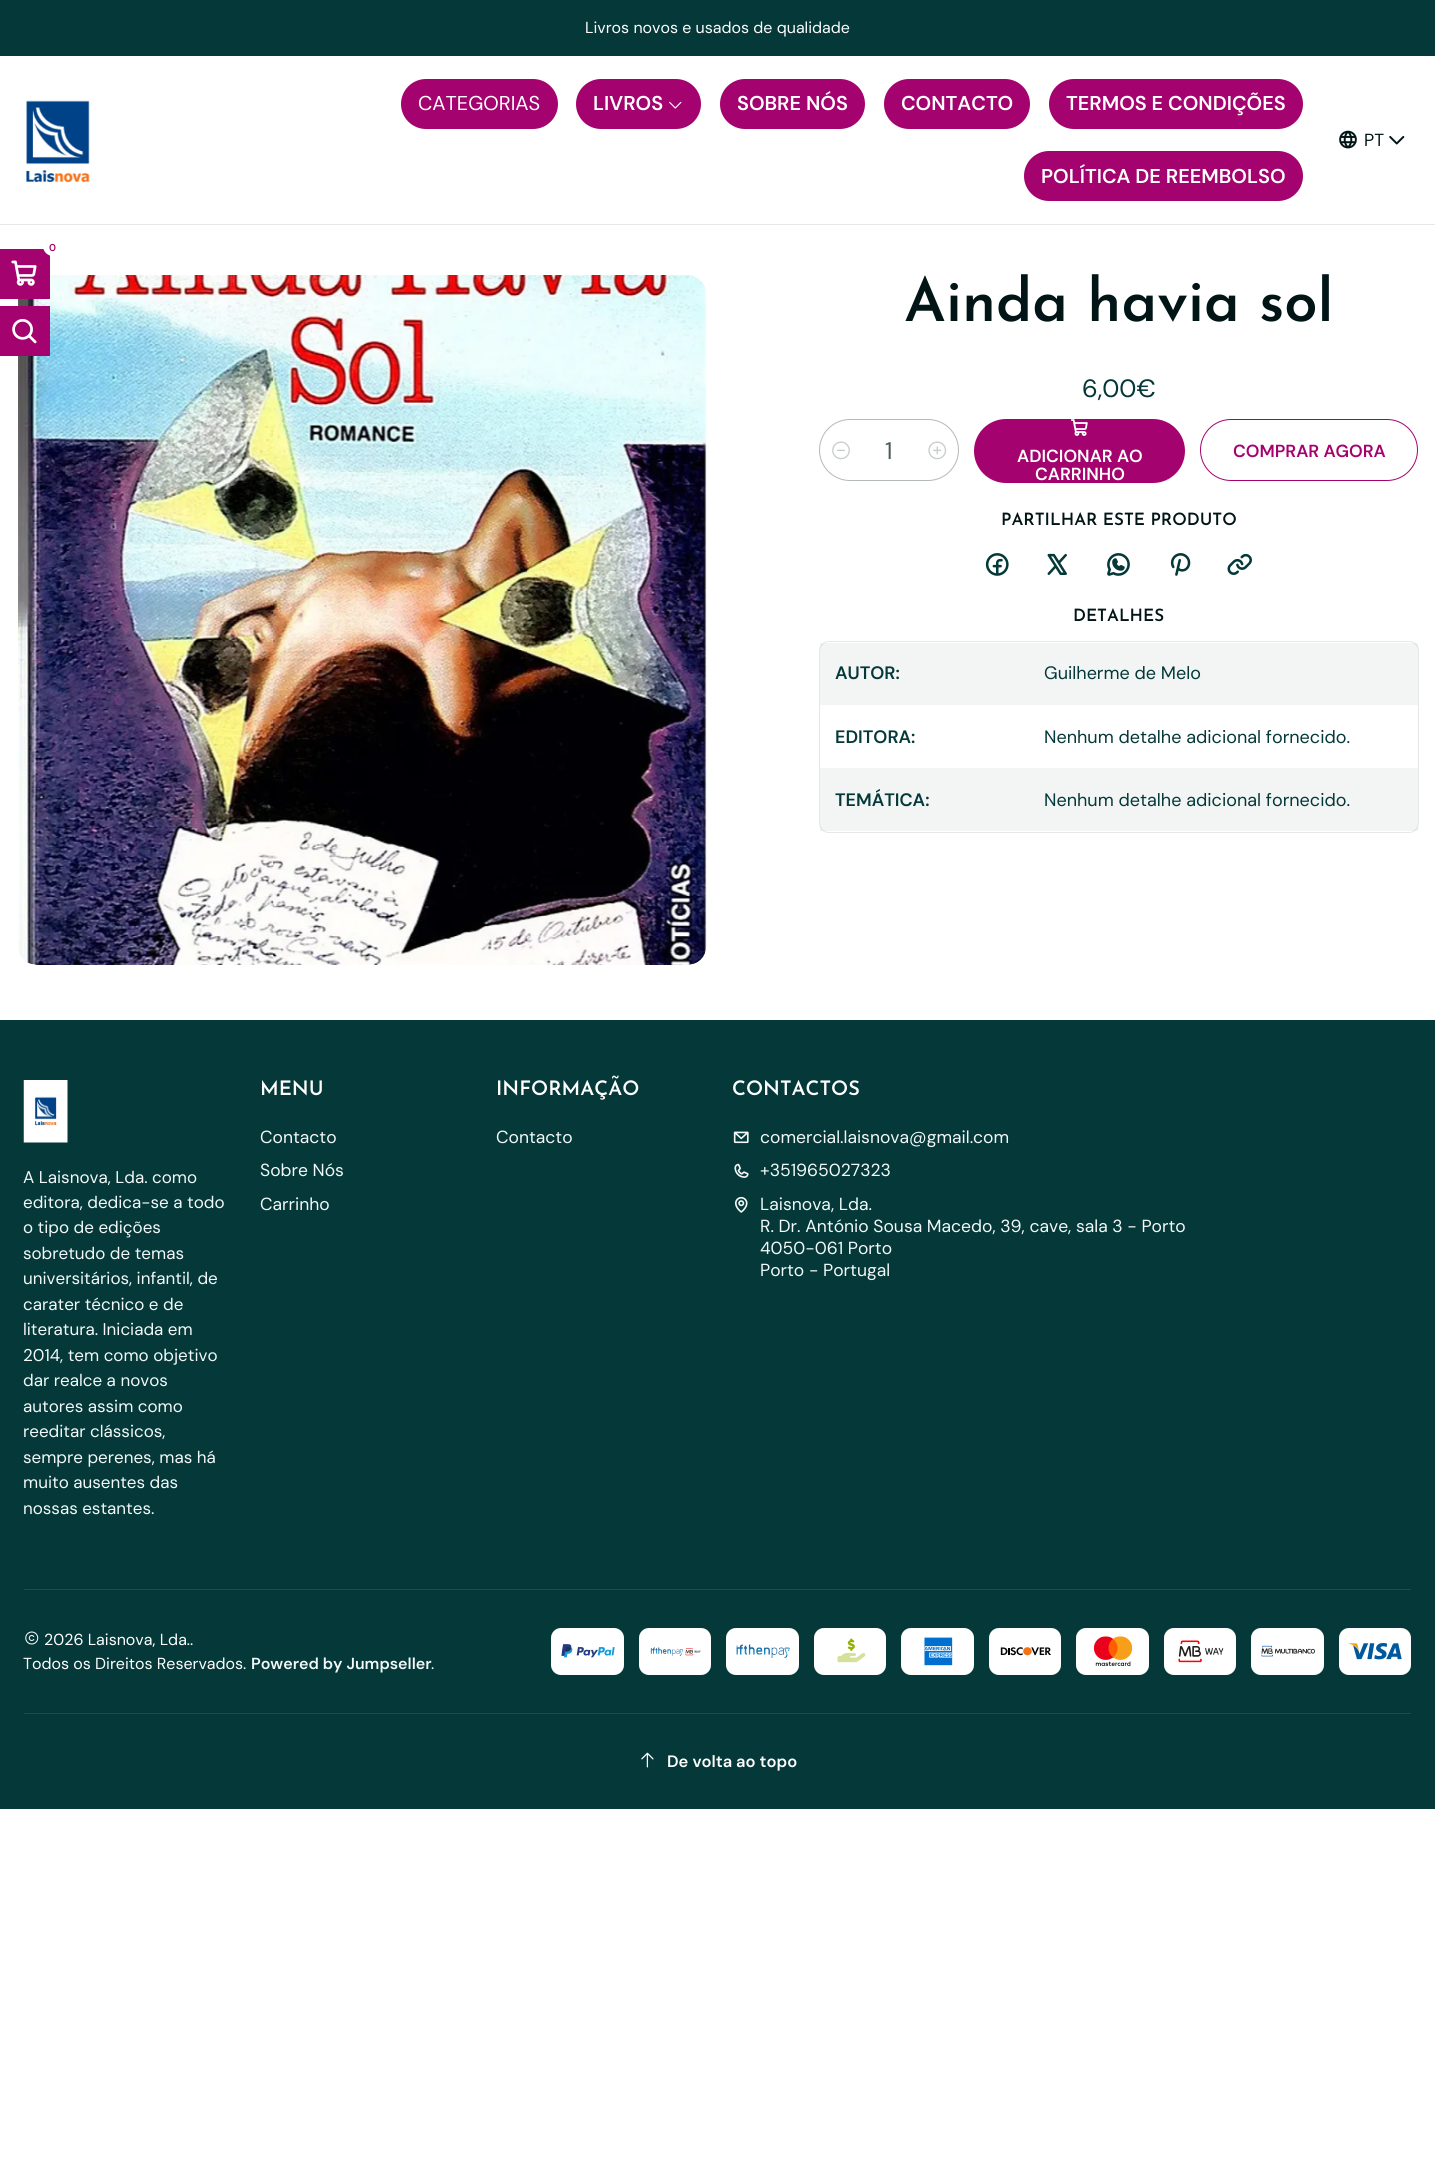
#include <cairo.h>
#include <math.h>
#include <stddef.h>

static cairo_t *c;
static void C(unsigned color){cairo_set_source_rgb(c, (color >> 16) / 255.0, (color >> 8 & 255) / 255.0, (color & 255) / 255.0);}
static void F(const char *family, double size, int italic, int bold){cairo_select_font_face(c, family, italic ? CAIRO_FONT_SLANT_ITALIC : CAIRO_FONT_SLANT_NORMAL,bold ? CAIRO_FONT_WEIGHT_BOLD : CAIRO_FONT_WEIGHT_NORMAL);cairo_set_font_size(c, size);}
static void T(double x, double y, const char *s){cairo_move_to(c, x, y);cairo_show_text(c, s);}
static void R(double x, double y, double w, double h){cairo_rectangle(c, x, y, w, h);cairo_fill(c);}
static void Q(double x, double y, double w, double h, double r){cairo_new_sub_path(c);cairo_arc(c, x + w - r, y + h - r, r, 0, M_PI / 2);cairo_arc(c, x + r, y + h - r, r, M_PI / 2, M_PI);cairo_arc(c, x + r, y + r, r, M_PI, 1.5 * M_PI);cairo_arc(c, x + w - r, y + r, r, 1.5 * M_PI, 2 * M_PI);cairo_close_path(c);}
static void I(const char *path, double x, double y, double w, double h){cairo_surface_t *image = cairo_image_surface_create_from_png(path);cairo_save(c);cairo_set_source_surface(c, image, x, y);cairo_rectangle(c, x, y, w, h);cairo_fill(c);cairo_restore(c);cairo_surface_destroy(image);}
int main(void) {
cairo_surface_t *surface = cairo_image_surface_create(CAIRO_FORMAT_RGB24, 1435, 2182);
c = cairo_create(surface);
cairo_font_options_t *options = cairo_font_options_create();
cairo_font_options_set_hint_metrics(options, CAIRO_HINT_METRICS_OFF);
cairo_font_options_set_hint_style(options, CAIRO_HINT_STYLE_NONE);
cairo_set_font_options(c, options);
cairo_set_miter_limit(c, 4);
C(0xffffff);
cairo_paint(c);
C(0x043839);
R(0,0,1435,56);
F("DM Sans",16,0,0);
C(0xffffff);
T(585,33,"Livros novos e usados de qualidade");
C(0xe6e8e8);
R(0,224,1435,1);
I("1.png",26,100,64,83);
C(0xa4036f);
Q(401,79,157,50,25);
cairo_fill(c);
F("DM Sans",20,0,0);
C(0xffffff);
T(418,110,"CATEGORIAS");
C(0xa4036f);
Q(576,79,125,50,25);
cairo_fill(c);
F("DM Sans SemiBold",20,0,0);
C(0xffffff);
T(593,110,"LIVROS");
I("2.png",669,101,13,8);
C(0xa4036f);
Q(720,79,145,50,25);
cairo_fill(c);
C(0xffffff);
T(737,110,"SOBRE NÓS");
C(0xa4036f);
Q(884,79,146,50,25);
cairo_fill(c);
C(0xffffff);
T(901,110,"CONTACTO");
C(0xa4036f);
Q(1049,79,254,50,25);
cairo_fill(c);
C(0xffffff);
T(1066,110,"TERMOS E CONDIÇÕES");
C(0xa4036f);
Q(1024,151,279,50,25);
cairo_fill(c);
C(0xffffff);
T(1041,183,"POLÍTICA DE REEMBOLSO");
I("3.png",1339,130,18,19);
F("DM Sans",17.5,0,0);
C(0x021516);
T(1364,146,"PT");
I("4.png",1389,136,16,9);
I("7.png",18,275,689,690);
C(0xa4036f);
R(0,249,50,50);
C(0xffffff);
cairo_arc(c,53,246,10,0,2 * M_PI);
cairo_fill(c);
F("DM Sans SemiBold",10,0,0);
C(0xa4036f);
T(49,251,"0");
I("5.png",11,260,26,26);
R(0,306,50,50);
I("6.png",12,319,25,25);
I("8.png",35,611,25,25);
I("9.png",664,611,25,25);
F("Josefin Sans SemiBold",60,0,0);
C(0x021516);
T(904,321,"Ainda havia sol");
F("DM Sans",25,0,0);
C(0x043839);
T(1082,397,"6,00€");
Q(819.5,419.5,139,61,30.5);
C(0xb3b9b9);
cairo_set_line_width(c,1);
cairo_stroke(c);
I("10.png",832,441,18,19);
F("DM Sans",24,0,0);
C(0x4e5b5c);
T(885,459,"1");
I("11.png",928,441,19,19);
C(0xa4036f);
Q(974,419,211,64,32);
cairo_fill(c);
I("12.png",1071,419,17,17);
F("DM Sans SemiBold",17.5,0,0);
C(0xffffff);
T(1017,462,"ADICIONAR AO");
T(1035,480,"CARRINHO");
Q(1200.5,419.5,217,61,30.5);
C(0xa4036f);
cairo_stroke(c);
T(1233,457,"COMPRAR AGORA");
F("Josefin Sans SemiBold",17,0,0);
C(0x021516);
T(1001,525,"PARTILHAR ESTE PRODUTO");
I("13.png",985,553,24,23);
I("14.png",1047,553,20,22);
I("15.png",1107,553,23,23);
I("16.png",1170,553,21,23);
I("17.png",1227,553,25,22);
T(1073,621,"DETALHES");
Q(819.5,641.5,599,191,9.5);
C(0xe6e8e8);
cairo_stroke(c);
cairo_set_source_rgba(c,0.016,0.22,0.224,0.05);
R(820,643,598,62);
F("DM Sans SemiBold",18,0,0);
C(0x043839);
T(835,679,"AUTOR:");
F("DM Sans",18,0,0);
T(1044,679,"Guilherme de Melo");
F("DM Sans SemiBold",18,0,0);
T(835,743,"EDITORA:");
F("DM Sans",18,0,0);
T(1044,743,"Nenhum detalhe adicional fornecido.");
cairo_set_source_rgba(c,0.016,0.22,0.224,0.05);
R(820,768,598,63);
F("DM Sans SemiBold",18,0,0);
C(0x043839);
T(835,806,"TEMÁTICA:");
F("DM Sans",18,0,0);
T(1044,806,"Nenhum detalhe adicional fornecido.");
R(0,1020,1435,789);
I("18.png",23,1080,45,63);
F("DM Sans",17,0,0);
C(0xf3f8f8);
T(23,1183,"A Laisnova, Lda. como");
T(23,1208,"editora, dedica-se a todo");
T(23,1233,"o tipo de edições");
T(23,1259,"sobretudo de temas");
T(23,1284,"universitários, infantil, de");
T(23,1310,"carater técnico e de");
T(23,1335,"literatura. Iniciada em");
T(23,1361,"2014, tem como objetivo");
T(23,1386,"dar realce a novos");
T(23,1412,"autores assim como");
T(23,1437,"reeditar clássicos,");
T(23,1463,"sempre perenes, mas há");
T(23,1488,"muito ausentes das");
T(23,1514,"nossas estantes.");
F("Josefin Sans SemiBold",20,0,0);
C(0xffffff);
T(260,1095,"MENU");
F("DM Sans",17.5,0,0);
C(0xf3f8f8);
T(260,1143,"Contacto");
T(260,1176,"Sobre Nós");
T(260,1210,"Carrinho");
F("Josefin Sans SemiBold",20,0,0);
C(0xffffff);
T(496,1095,"INFORMAÇÃO");
F("DM Sans",17.5,0,0);
C(0xf3f8f8);
T(496,1143,"Contacto");
F("Josefin Sans SemiBold",20,0,0);
C(0xffffff);
T(732,1095,"CONTACTOS");
I("19.png",733,1131,16,13);
F("DM Sans",17.5,0,0);
C(0xf3f8f8);
T(760,1143,"comercial.laisnova@gmail.com");
I("20.png",734,1163,15,15);
T(760,1176,"+351965027323");
I("21.png",735,1196,13,17);
T(760,1210,"Laisnova, Lda.");
T(760,1232,"R. Dr. António Sousa Macedo, 39, cave, sala 3 - Porto");
T(760,1254,"4050-061 Porto");
T(760,1276,"Porto - Portugal");
C(0x1d4c4d);
R(24,1589,1387,1);
I("22.png",25,1631,14,14);
F("DM Sans",16,0,0);
C(0xffffff);
T(44,1645,"2026 Laisnova, Lda..");
T(23,1669,"Todos os Direitos Reservados.");
F("DM Sans SemiBold",16,0,0);
C(0xf3f8f8);
T(251,1669,"Powered by Jumpseller");
F("DM Sans",16,0,0);
C(0xffffff);
T(431,1669,".");
Q(551,1628,73,47,10);
cairo_fill(c);
Q(551.5,1628.5,72,46,9.5);
cairo_set_source_rgba(c,1,1,1,0.1);
cairo_stroke(c);
I("23.png",561,1644,54,14);
C(0xffffff);
Q(639,1628,72,47,10);
cairo_fill(c);
Q(639.5,1628.5,71,46,9.5);
cairo_set_source_rgba(c,1,1,1,0.1);
cairo_stroke(c);
I("24.png",650,1647,51,9);
C(0xffffff);
Q(726,1628,73,47,10);
cairo_fill(c);
Q(726.5,1628.5,72,46,9.5);
cairo_set_source_rgba(c,1,1,1,0.1);
cairo_stroke(c);
I("25.png",736,1644,54,14);
C(0xffffff);
Q(814,1628,72,47,10);
cairo_fill(c);
Q(814.5,1628.5,71,46,9.5);
cairo_set_source_rgba(c,1,1,1,0.1);
cairo_stroke(c);
I("26.png",837,1638,29,25);
C(0xffffff);
Q(901,1628,73,47,10);
cairo_fill(c);
Q(901.5,1628.5,72,46,9.5);
cairo_set_source_rgba(c,1,1,1,0.1);
cairo_stroke(c);
I("27.png",924,1637,29,29);
C(0xffffff);
Q(989,1628,72,47,10);
cairo_fill(c);
Q(989.5,1628.5,71,46,9.5);
cairo_set_source_rgba(c,1,1,1,0.1);
cairo_stroke(c);
I("28.png",1000,1647,51,9);
C(0xffffff);
Q(1076,1628,73,47,10);
cairo_fill(c);
Q(1076.5,1628.5,72,46,9.5);
cairo_set_source_rgba(c,1,1,1,0.1);
cairo_stroke(c);
I("29.png",1094,1636,39,30);
C(0xffffff);
Q(1164,1628,72,47,10);
cairo_fill(c);
Q(1164.5,1628.5,71,46,9.5);
cairo_set_source_rgba(c,1,1,1,0.1);
cairo_stroke(c);
I("30.png",1178,1640,46,23);
C(0xffffff);
Q(1251,1628,73,47,10);
cairo_fill(c);
Q(1251.5,1628.5,72,46,9.5);
cairo_set_source_rgba(c,1,1,1,0.1);
cairo_stroke(c);
I("31.png",1261,1645,54,12);
C(0xffffff);
Q(1339,1628,72,47,10);
cairo_fill(c);
Q(1339.5,1628.5,71,46,9.5);
cairo_set_source_rgba(c,1,1,1,0.1);
cairo_stroke(c);
I("32.png",1348,1643,54,17);
C(0x1d4c4d);
R(24,1713,1387,1);
I("33.png",641,1752,13,16);
F("DM Sans SemiBold",16.5,0,0);
C(0xffffff);
T(667,1767,"De volta ao topo");
cairo_surface_write_to_png(surface, "o.png");
cairo_font_options_destroy(options);
cairo_destroy(c);
cairo_surface_destroy(surface);
return 0;
}
